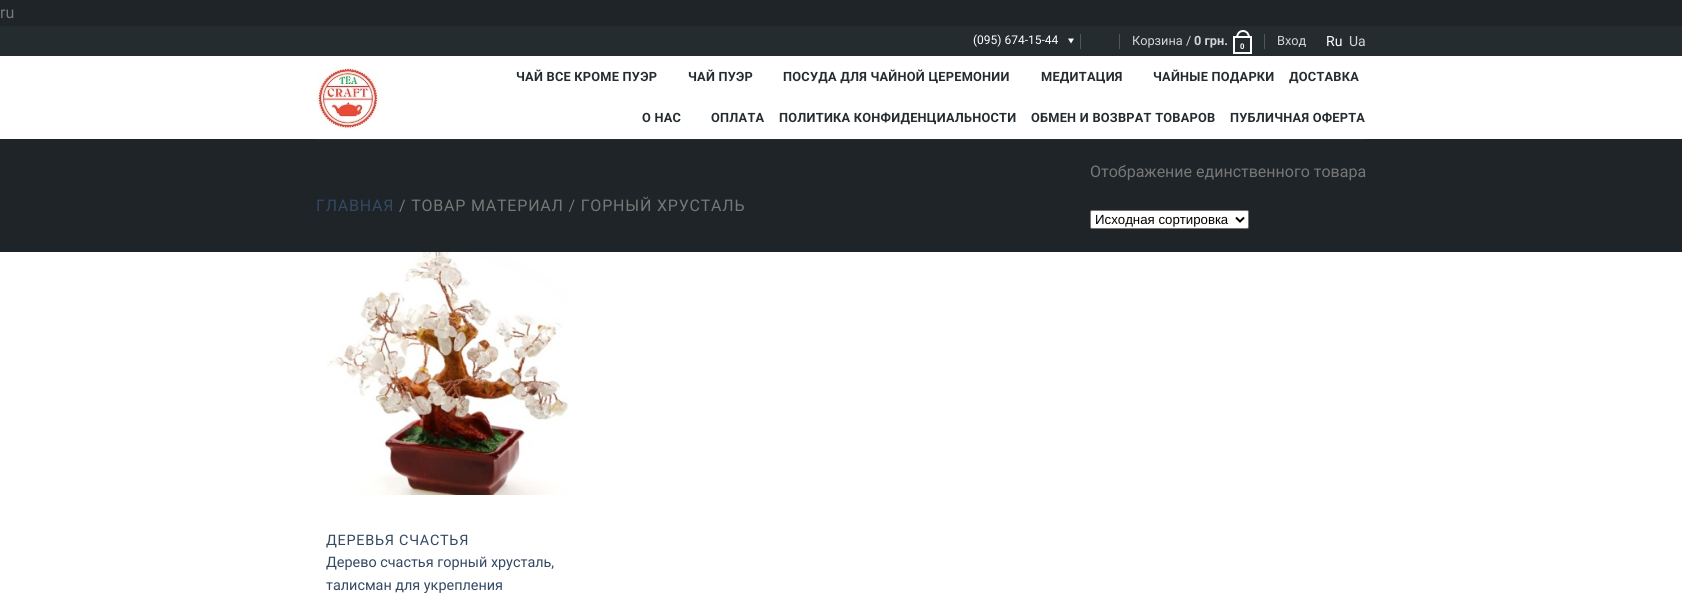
#include <cairo.h>
#include <math.h>
#include <stddef.h>

static cairo_t *c;
static void C(unsigned color){cairo_set_source_rgb(c, (color >> 16) / 255.0, (color >> 8 & 255) / 255.0, (color & 255) / 255.0);}
static void F(const char *family, double size, int italic, int bold){cairo_select_font_face(c, family, italic ? CAIRO_FONT_SLANT_ITALIC : CAIRO_FONT_SLANT_NORMAL,bold ? CAIRO_FONT_WEIGHT_BOLD : CAIRO_FONT_WEIGHT_NORMAL);cairo_set_font_size(c, size);}
static void T(double x, double y, const char *s){cairo_move_to(c, x, y);cairo_show_text(c, s);}
static void L(double x, double y, const char *s, double letter, double word){cairo_move_to(c, x, y);while (*s) {char ch[5] = {0};int n = 0;do ch[n++] = *s++; while ((*s & 0xC0) == 0x80);cairo_show_text(c, ch);cairo_rel_move_to(c, letter + word * (*ch == ' '), 0);}}
static void R(double x, double y, double w, double h){cairo_rectangle(c, x, y, w, h);cairo_fill(c);}
static void Q(double x, double y, double w, double h, double r){cairo_new_sub_path(c);cairo_arc(c, x + w - r, y + h - r, r, 0, M_PI / 2);cairo_arc(c, x + r, y + h - r, r, M_PI / 2, M_PI);cairo_arc(c, x + r, y + r, r, M_PI, 1.5 * M_PI);cairo_arc(c, x + w - r, y + r, r, 1.5 * M_PI, 2 * M_PI);cairo_close_path(c);}
static void I(const char *path, double x, double y, double w, double h){cairo_surface_t *image = cairo_image_surface_create_from_png(path);cairo_save(c);cairo_set_source_surface(c, image, x, y);cairo_rectangle(c, x, y, w, h);cairo_fill(c);cairo_restore(c);cairo_surface_destroy(image);}
int main(void) {
cairo_surface_t *surface = cairo_image_surface_create(CAIRO_FORMAT_RGB24, 1682, 593);
c = cairo_create(surface);
cairo_font_options_t *options = cairo_font_options_create();
cairo_font_options_set_hint_metrics(options, CAIRO_HINT_METRICS_OFF);
cairo_font_options_set_hint_style(options, CAIRO_HINT_STYLE_NONE);
cairo_set_font_options(c, options);
cairo_set_miter_limit(c, 4);
C(0x1e2427);
cairo_paint(c);
F("Roboto",16,0,0);
C(0x777777);
T(0,18,"ru");
C(0xffffff);
R(0,56,1682,83);
C(0x252c30);
R(0,26,1682,30);
F("Roboto",12,0,0);
C(0xffffff);
T(973,44,"(095) 674-15-44");
cairo_new_path(c);
cairo_move_to(c,1068,38.5);
cairo_line_to(c,1074,38.5);
cairo_line_to(c,1071,43.5);
cairo_close_path(c);
cairo_fill(c);
C(0x515659);
R(1080,34,1,15);
R(1119,34,1,15);
F("Roboto",12.75,0,0);
C(0xd3d5d6);
T(1132,45,"Корзина /");
F("Roboto",12.75,0,1);
T(1194,45,"0 грн.");
cairo_rectangle(c,1234,37,17,16);
C(0xffffff);
cairo_stroke(c);
cairo_set_fill_rule(c,CAIRO_FILL_RULE_EVEN_ODD);
cairo_new_path(c);
cairo_move_to(c,1243,30);
cairo_curve_to(c,1247.5,30,1250,34,1250,38);
cairo_line_to(c,1236,38);
cairo_curve_to(c,1236,34,1238.5,30,1243,30);
cairo_close_path(c);
cairo_move_to(c,1243,32);
cairo_curve_to(c,1246.5,32,1248,35,1248,38);
cairo_line_to(c,1238,38);
cairo_curve_to(c,1238,35,1239.5,32,1243,32);
cairo_close_path(c);
cairo_fill(c);
F("Liberation Sans",8,0,1);
T(1240,49,"0");
C(0x515659);
R(1264,34,1,15);
F("Roboto",12.75,0,0);
C(0xd3d5d6);
T(1277,45,"Вход");
F("Roboto",14,0,0);
C(0xffffff);
T(1326,46,"Ru");
C(0xd3d5d6);
T(1349,46,"Ua");
I("1.png",316,66,64,64);
F("Roboto",12.75,0,1);
C(0x252c30);
L(516,81,"ЧАЙ ВСЕ КРОМЕ ПУЭР",.25,0);
L(688,81,"ЧАЙ ПУЭР",.25,0);
L(783,81,"ПОСУДА ДЛЯ ЧАЙНОЙ ЦЕРЕМОНИИ",.25,0);
L(1041,81,"МЕДИТАЦИЯ",.25,0);
L(1153,81,"ЧАЙНЫЕ ПОДАРКИ",.25,0);
L(1289,81,"ДОСТАВКА",.25,0);
L(642,122,"О НАС",.25,0);
L(711,122,"ОПЛАТА",.25,0);
L(779,122,"ПОЛИТИКА КОНФИДЕНЦИАЛЬНОСТИ",.25,0);
L(1031,122,"ОБМЕН И ВОЗВРАТ ТОВАРОВ",.25,0);
L(1230,122,"ПУБЛИЧНАЯ ОФЕРТА",.25,0);
C(0x272c2f);
R(316,139,1050,1);
F("Roboto",16,0,0);
C(0x334862);
L(316,211,"ГЛАВНАЯ",.8,0);
C(0x777777);
L(399,211,"/ ТОВАР МАТЕРИАЛ / ГОРНЫЙ ХРУСТАЛЬ",.8,0);
T(1090,177,"Отображение единственного товара");
C(0xffffff);
Q(1090.5,210.5,158,18,1.5);
cairo_fill_preserve(c);
C(0x767676);
cairo_set_line_width(c,1);
cairo_stroke(c);
cairo_new_path(c);
cairo_move_to(c,1236,217.5);
cairo_line_to(c,1240,221.5);
cairo_line_to(c,1244,217.5);
C(0x000000);
cairo_set_line_width(c,2);
cairo_stroke(c);
F("Liberation Sans",13.25,0,0);
T(1095,224,"Исходная сортировка");
C(0xffffff);
R(0,252,1682,341);
I("2.png",327,252,242,243);
F("Roboto",14.4,0,0);
C(0x334862);
L(326,545,"ДЕРЕВЬЯ СЧАСТЬЯ",.75,0);
T(326,567,"Дерево счастья горный хрусталь,");
T(326,590,"талисман для укрепления");
cairo_surface_write_to_png(surface, "o.png");
cairo_font_options_destroy(options);
cairo_destroy(c);
cairo_surface_destroy(surface);
return 0;
}
